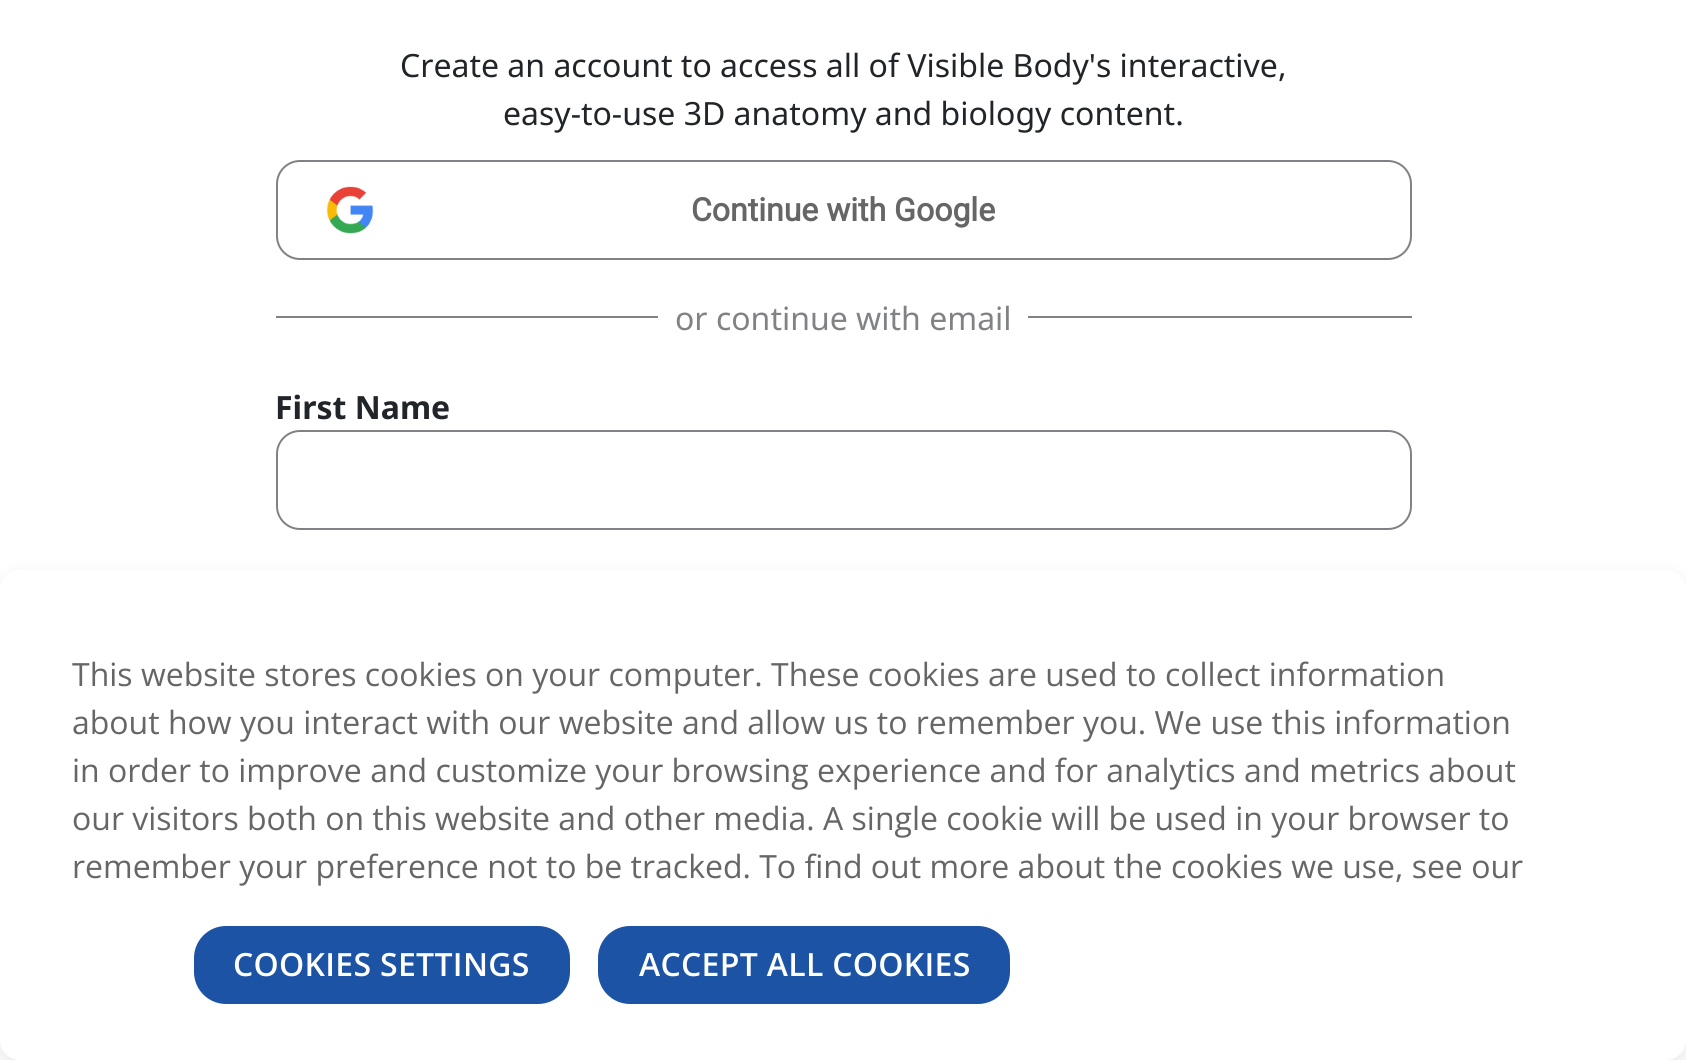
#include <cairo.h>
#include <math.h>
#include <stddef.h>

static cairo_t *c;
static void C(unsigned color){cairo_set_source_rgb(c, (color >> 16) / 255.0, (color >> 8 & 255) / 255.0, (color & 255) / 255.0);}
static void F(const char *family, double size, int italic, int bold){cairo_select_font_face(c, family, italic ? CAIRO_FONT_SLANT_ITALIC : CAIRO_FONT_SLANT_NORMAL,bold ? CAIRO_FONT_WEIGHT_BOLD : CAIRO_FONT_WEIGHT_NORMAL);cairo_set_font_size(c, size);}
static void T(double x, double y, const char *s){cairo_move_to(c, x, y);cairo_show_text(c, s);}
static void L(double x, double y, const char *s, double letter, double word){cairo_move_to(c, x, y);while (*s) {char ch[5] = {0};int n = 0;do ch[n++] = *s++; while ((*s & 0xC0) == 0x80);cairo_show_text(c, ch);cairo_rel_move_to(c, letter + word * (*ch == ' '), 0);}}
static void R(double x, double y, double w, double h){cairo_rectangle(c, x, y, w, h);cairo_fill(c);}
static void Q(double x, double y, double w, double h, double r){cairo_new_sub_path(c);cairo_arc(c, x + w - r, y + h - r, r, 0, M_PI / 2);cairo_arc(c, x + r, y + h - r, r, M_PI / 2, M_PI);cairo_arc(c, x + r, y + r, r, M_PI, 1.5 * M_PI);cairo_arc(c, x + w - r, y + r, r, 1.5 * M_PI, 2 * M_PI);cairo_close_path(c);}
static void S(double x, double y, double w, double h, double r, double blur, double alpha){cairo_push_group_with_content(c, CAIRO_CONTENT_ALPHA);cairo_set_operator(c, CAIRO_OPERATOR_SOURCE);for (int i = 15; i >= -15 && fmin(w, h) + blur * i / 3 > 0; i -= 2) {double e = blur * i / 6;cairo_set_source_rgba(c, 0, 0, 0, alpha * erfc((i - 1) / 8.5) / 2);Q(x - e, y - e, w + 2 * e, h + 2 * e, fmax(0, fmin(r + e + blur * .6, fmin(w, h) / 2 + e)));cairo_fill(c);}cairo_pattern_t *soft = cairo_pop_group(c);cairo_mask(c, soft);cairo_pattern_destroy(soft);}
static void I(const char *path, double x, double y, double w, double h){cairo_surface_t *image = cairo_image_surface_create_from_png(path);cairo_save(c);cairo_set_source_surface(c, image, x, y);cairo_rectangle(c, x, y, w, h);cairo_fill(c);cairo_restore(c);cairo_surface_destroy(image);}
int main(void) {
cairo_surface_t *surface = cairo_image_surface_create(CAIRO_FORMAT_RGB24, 1686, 1060);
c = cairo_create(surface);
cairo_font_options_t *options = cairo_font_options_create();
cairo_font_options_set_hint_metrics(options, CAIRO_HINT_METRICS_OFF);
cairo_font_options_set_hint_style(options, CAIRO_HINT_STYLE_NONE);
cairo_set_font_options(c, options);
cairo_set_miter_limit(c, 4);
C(0xffffff);
cairo_paint(c);
F("Noto Sans",32,0,0);
C(0x212529);
T(400,77,"Create an account to access all of Visible Body's interactive,");
T(503,125,"easy-to-use 3D anatomy and biology content.");
I("1.png",326,186,48,48);
Q(277,161,1134,98,23);
C(0x808285);
cairo_stroke(c);
F("Roboto",32,0,1);
C(0x666666);
T(691,221,"Continue with Google");
C(0x808285);
R(276,316,382,2);
F("Noto Sans",32,0,0);
T(675,330,"or continue with email");
R(1028,316,384,2);
F("Noto Sans",32,0,1);
C(0x212529);
T(275,419,"First Name");
Q(277,431,1134,98,23);
C(0x808285);
cairo_stroke(c);
C(0x000000);
S(0,578,1686,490,20,10,.1);
C(0xffffff);
Q(0,570,1686,490,20);
cairo_fill(c);
F("Open Sans",32,0,0);
C(0x666666);
T(72,686,"This website stores cookies on your computer. These cookies are used to collect information");
T(72,734,"about how you interact with our website and allow us to remember you. We use this information");
T(72,782,"in order to improve and customize your browsing experience and for analytics and metrics about");
T(72,830,"our visitors both on this website and other media. A single cookie will be used in your browser to");
T(72,878,"remember your preference not to be tracked. To find out more about the cookies we use, see our");
C(0x1c53a5);
Q(194,926,376,78,32);
cairo_fill(c);
F("Open Sans SemiBold",32,0,0);
C(0xffffff);
L(233,976,"COOKIES SETTINGS",.3,0);
C(0x1c53a5);
Q(598,926,412,78,32);
cairo_fill(c);
C(0xffffff);
L(639,976,"ACCEPT ALL COOKIES",.3,0);
cairo_surface_write_to_png(surface, "o.png");
cairo_font_options_destroy(options);
cairo_destroy(c);
cairo_surface_destroy(surface);
return 0;
}
